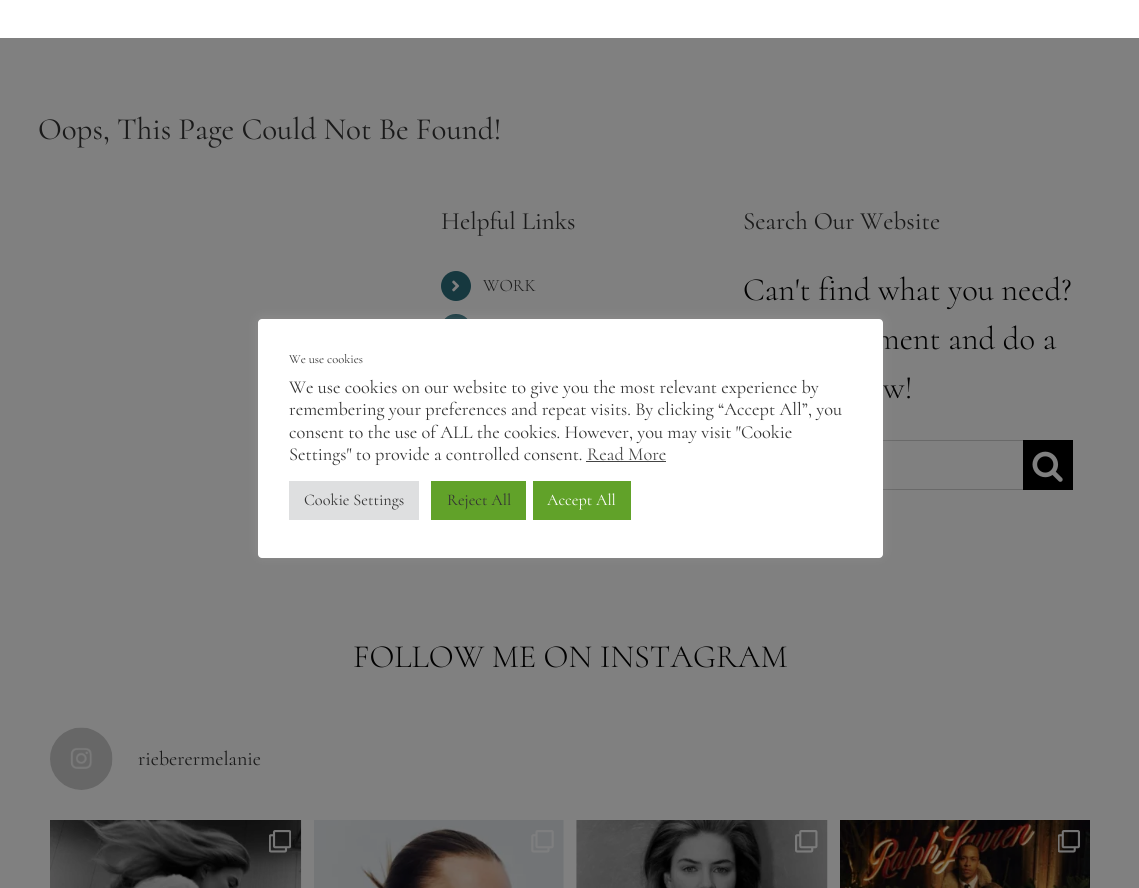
#include <cairo.h>
#include <math.h>
#include <stddef.h>

static cairo_t *c;
static void C(unsigned color){cairo_set_source_rgb(c, (color >> 16) / 255.0, (color >> 8 & 255) / 255.0, (color & 255) / 255.0);}
static void F(const char *family, double size, int italic, int bold){cairo_select_font_face(c, family, italic ? CAIRO_FONT_SLANT_ITALIC : CAIRO_FONT_SLANT_NORMAL,bold ? CAIRO_FONT_WEIGHT_BOLD : CAIRO_FONT_WEIGHT_NORMAL);cairo_set_font_size(c, size);}
static void T(double x, double y, const char *s){cairo_move_to(c, x, y);cairo_show_text(c, s);}
static void R(double x, double y, double w, double h){cairo_rectangle(c, x, y, w, h);cairo_fill(c);}
static void Q(double x, double y, double w, double h, double r){cairo_new_sub_path(c);cairo_arc(c, x + w - r, y + h - r, r, 0, M_PI / 2);cairo_arc(c, x + r, y + h - r, r, M_PI / 2, M_PI);cairo_arc(c, x + r, y + r, r, M_PI, 1.5 * M_PI);cairo_arc(c, x + w - r, y + r, r, 1.5 * M_PI, 2 * M_PI);cairo_close_path(c);}
static void S(double x, double y, double w, double h, double r, double blur, double alpha){cairo_push_group_with_content(c, CAIRO_CONTENT_ALPHA);cairo_set_operator(c, CAIRO_OPERATOR_SOURCE);for (int i = 15; i >= -15 && fmin(w, h) + blur * i / 3 > 0; i -= 2) {double e = blur * i / 6;cairo_set_source_rgba(c, 0, 0, 0, alpha * erfc((i - 1) / 8.5) / 2);Q(x - e, y - e, w + 2 * e, h + 2 * e, fmax(0, fmin(r + e + blur * .6, fmin(w, h) / 2 + e)));cairo_fill(c);}cairo_pattern_t *soft = cairo_pop_group(c);cairo_mask(c, soft);cairo_pattern_destroy(soft);}
static void I(const char *path, double x, double y, double w, double h){cairo_surface_t *image = cairo_image_surface_create_from_png(path);cairo_save(c);cairo_set_source_surface(c, image, x, y);cairo_rectangle(c, x, y, w, h);cairo_fill(c);cairo_restore(c);cairo_surface_destroy(image);}
int main(void) {
cairo_surface_t *surface = cairo_image_surface_create(CAIRO_FORMAT_RGB24, 1139, 888);
c = cairo_create(surface);
cairo_font_options_t *options = cairo_font_options_create();
cairo_font_options_set_hint_metrics(options, CAIRO_HINT_METRICS_OFF);
cairo_font_options_set_hint_style(options, CAIRO_HINT_STYLE_NONE);
cairo_set_font_options(c, options);
cairo_set_miter_limit(c, 4);
C(0x808080);
cairo_paint(c);
C(0xffffff);
R(0,0,1139,38);
F("Cormorant",31,0,0);
C(0x1a1a1a);
T(38,139,"Oops, This Page Could Not Be Found!");
F("Cormorant",25,0,0);
T(441,229,"Helpful Links");
C(0x16383f);
cairo_new_path(c);
cairo_arc(c,456,286,15,0,2 * M_PI);
cairo_fill(c);
I("1.png",452,280,8,12);
F("Cormorant Light",17.5,0,0);
C(0x1a1a1a);
T(483,291,"WORK");
C(0x16383f);
Q(441,314,30,29,14.5);
cairo_fill(c);
F("Cormorant",25,0,0);
C(0x1a1a1a);
T(743,229,"Search Our Website");
F("Cormorant Light",32.5,0,0);
C(0x000000);
T(743,300,"Can't find what you need?");
T(875,349,"ment and do a");
T(883,398,"w!");
C(0x696969);
R(883,440,140,1);
R(883,489,140,1);
C(0x000000);
R(1023,440,50,50);
I("2.png",1032,451,31,31);
T(353,667,"FOLLOW ME ON INSTAGRAM");
I("3.png",50,727,63,63);
F("Cormorant",20,0,0);
C(0x1a1a1a);
T(138,765,"rieberermelanie");
I("4.png",50,820,252,68);
I("5.png",269,830,22,23);
I("6.png",314,820,250,68);
I("7.png",531,830,23,23);
I("8.png",576,820,252,68);
I("9.png",795,830,23,23);
I("10.png",840,820,250,68);
I("11.png",1058,830,22,23);
C(0xacabab);
S(258,318,625,238,4,6,.3);
C(0xffffff);
Q(258,319,625,239,4);
cairo_fill(c);
F("Cormorant",12.5,0,0);
C(0x333333);
T(289,363,"We use cookies");
F("Cormorant",18.3,0,0);
T(289,393,"We use cookies on our website to give you the most relevant experience by");
T(289,415,"remembering your preferences and repeat visits. By clicking “Accept All”, you");
T(289,438,"consent to the use of ALL the cookies. However, you may visit \"Cookie");
T(289,460,"Settings\" to provide a controlled consent.");
C(0x444444);
T(587,460,"Read More");
R(586,461,80,1);
C(0xdedfe0);
R(289,481,130,39);
F("Cormorant",16.25,0,0);
C(0x333333);
T(304,505,"Cookie Settings");
C(0x61a229);
R(431,481,95,39);
C(0x333333);
T(447,505,"Reject All");
C(0x61a229);
R(533,481,98,39);
C(0xffffff);
T(547,505,"Accept All");
cairo_surface_write_to_png(surface, "o.png");
cairo_font_options_destroy(options);
cairo_destroy(c);
cairo_surface_destroy(surface);
return 0;
}
